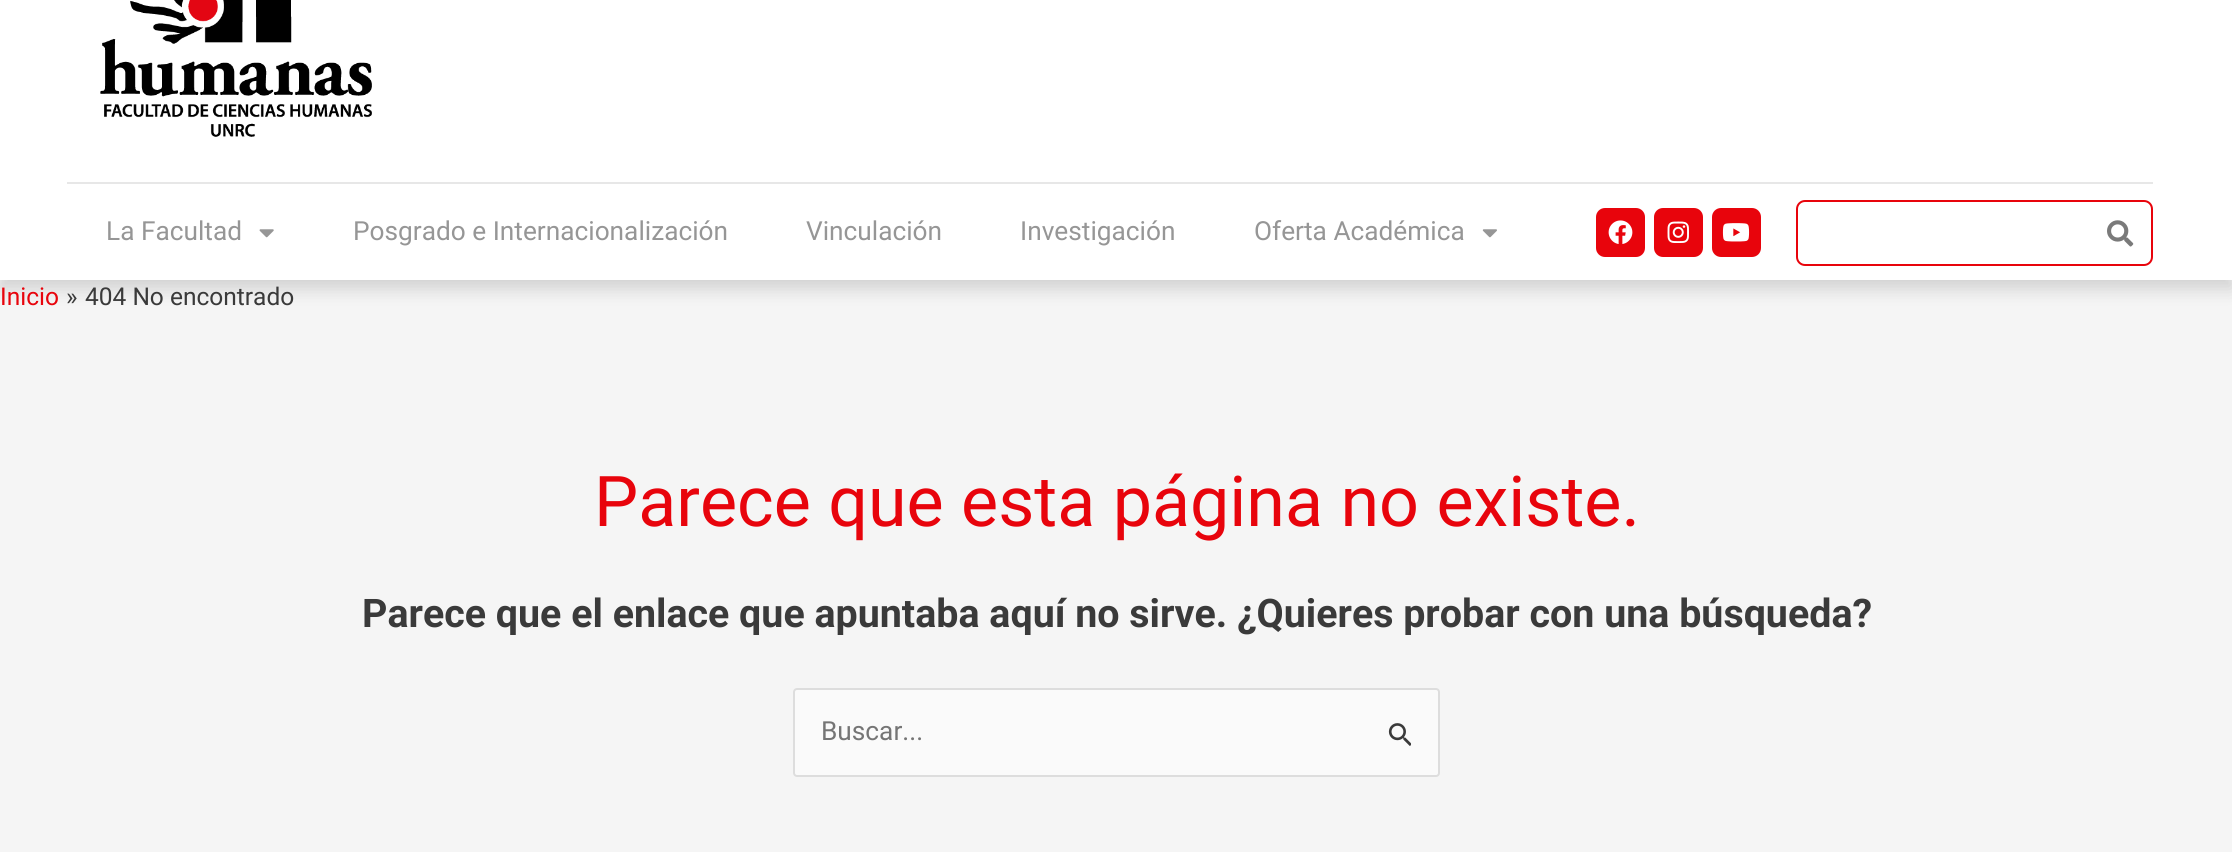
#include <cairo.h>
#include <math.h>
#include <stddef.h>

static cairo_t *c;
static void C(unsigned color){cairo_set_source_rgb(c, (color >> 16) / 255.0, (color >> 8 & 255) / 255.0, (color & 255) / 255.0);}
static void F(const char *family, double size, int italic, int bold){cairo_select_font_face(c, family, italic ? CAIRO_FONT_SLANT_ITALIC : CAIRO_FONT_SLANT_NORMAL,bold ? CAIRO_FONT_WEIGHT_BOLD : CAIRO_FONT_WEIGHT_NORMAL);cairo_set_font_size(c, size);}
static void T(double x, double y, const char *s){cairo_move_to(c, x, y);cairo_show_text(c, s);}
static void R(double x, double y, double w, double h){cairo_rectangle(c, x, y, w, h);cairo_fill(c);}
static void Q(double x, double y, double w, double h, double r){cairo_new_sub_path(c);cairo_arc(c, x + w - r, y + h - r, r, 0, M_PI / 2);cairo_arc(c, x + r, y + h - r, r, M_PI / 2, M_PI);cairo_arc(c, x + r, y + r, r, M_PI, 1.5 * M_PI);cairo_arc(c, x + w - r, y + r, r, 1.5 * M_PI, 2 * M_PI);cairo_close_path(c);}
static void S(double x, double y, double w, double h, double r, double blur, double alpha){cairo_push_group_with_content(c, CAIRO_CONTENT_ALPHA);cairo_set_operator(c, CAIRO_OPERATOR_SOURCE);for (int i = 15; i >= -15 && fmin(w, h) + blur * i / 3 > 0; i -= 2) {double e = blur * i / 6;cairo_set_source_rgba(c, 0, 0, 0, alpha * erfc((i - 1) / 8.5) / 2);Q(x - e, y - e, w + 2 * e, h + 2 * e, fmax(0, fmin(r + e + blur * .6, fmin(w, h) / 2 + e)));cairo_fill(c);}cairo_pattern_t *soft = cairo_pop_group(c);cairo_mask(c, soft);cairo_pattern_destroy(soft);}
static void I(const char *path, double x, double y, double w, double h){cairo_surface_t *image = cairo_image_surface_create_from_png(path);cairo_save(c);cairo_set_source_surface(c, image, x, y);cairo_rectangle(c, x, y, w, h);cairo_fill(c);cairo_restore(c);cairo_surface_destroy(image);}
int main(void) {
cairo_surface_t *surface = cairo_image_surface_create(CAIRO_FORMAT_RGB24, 2232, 852);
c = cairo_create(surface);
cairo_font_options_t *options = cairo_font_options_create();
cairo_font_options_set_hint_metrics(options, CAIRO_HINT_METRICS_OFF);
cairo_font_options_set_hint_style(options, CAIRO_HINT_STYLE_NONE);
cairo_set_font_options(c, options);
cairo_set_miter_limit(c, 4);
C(0xf5f5f5);
cairo_paint(c);
C(0x000000);
S(0,191,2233,98,0,9,.15);
C(0xffffff);
R(0,0,2232,280);
I("1.png",100,0,272,137);
C(0xe7e7e7);
R(67,182,2086,2);
F("Roboto",26.25,0,0);
C(0x969696);
T(106,240,"La Facultad");
I("2.png",259,229,15,9);
T(353,240,"Posgrado e Internacionalización");
T(806,240,"Vinculación");
T(1020,240,"Investigación");
T(1254,240,"Oferta Académica");
I("3.png",1482,229,15,9);
C(0xe8040c);
Q(1596,208,49,49,9);
cairo_fill(c);
I("4.png",1608,220,25,24);
Q(1654,208,49,49,9);
cairo_fill(c);
I("5.png",1667,221,22,22);
Q(1712,208,49,49,9);
cairo_fill(c);
I("6.png",1722,223,28,19);
Q(1797,201,355,64,8);
cairo_stroke(c);
I("7.png",2107,220,27,27);
F("Roboto",24.5,0,0);
T(0,305,"Inicio");
C(0x3a3a3a);
T(66,305,"»");
T(85,305,"404 No encontrado");
F("Roboto",70,0,0);
C(0xe8040c);
T(594,526,"Parece que esta página no existe.");
F("Roboto",39.4,0,1);
C(0x3a3a3a);
T(362,627,"Parece que el enlace que apuntaba aquí no sirve. ¿Quieres probar con una búsqueda?");
C(0xfafafa);
Q(794,689,645,87,3);
cairo_fill_preserve(c);
C(0xdddddd);
cairo_stroke(c);
F("Roboto",26.25,0,0);
C(0x757575);
T(821,740,"Buscar...");
I("8.png",1388,723,23,23);
cairo_surface_write_to_png(surface, "o.png");
cairo_font_options_destroy(options);
cairo_destroy(c);
cairo_surface_destroy(surface);
return 0;
}
